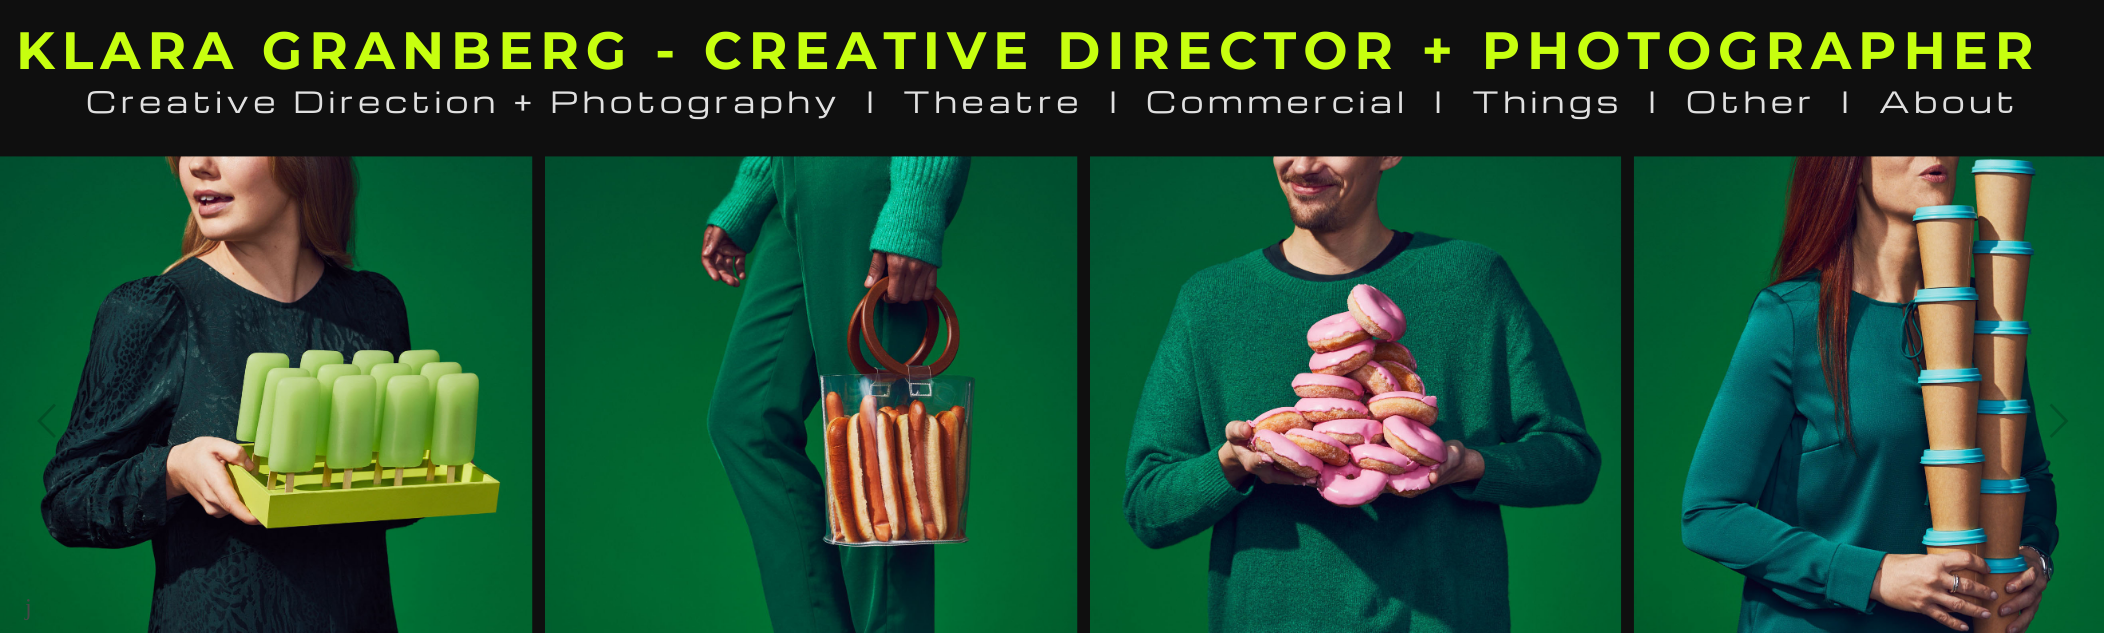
#include <cairo.h>
#include <math.h>
#include <stddef.h>

static cairo_t *c;
static void C(unsigned color){cairo_set_source_rgb(c, (color >> 16) / 255.0, (color >> 8 & 255) / 255.0, (color & 255) / 255.0);}
static void F(const char *family, double size, int italic, int bold){cairo_select_font_face(c, family, italic ? CAIRO_FONT_SLANT_ITALIC : CAIRO_FONT_SLANT_NORMAL,bold ? CAIRO_FONT_WEIGHT_BOLD : CAIRO_FONT_WEIGHT_NORMAL);cairo_set_font_size(c, size);}
static void T(double x, double y, const char *s){cairo_move_to(c, x, y);cairo_show_text(c, s);}
static void L(double x, double y, const char *s, double letter, double word){cairo_move_to(c, x, y);while (*s) {char ch[5] = {0};int n = 0;do ch[n++] = *s++; while ((*s & 0xC0) == 0x80);cairo_show_text(c, ch);cairo_rel_move_to(c, letter + word * (*ch == ' '), 0);}}
static void I(const char *path, double x, double y, double w, double h){cairo_surface_t *image = cairo_image_surface_create_from_png(path);cairo_save(c);cairo_set_source_surface(c, image, x, y);cairo_rectangle(c, x, y, w, h);cairo_fill(c);cairo_restore(c);cairo_surface_destroy(image);}
int main(void) {
cairo_surface_t *surface = cairo_image_surface_create(CAIRO_FORMAT_RGB24, 2104, 633);
c = cairo_create(surface);
cairo_font_options_t *options = cairo_font_options_create();
cairo_font_options_set_hint_metrics(options, CAIRO_HINT_METRICS_OFF);
cairo_font_options_set_hint_style(options, CAIRO_HINT_STYLE_NONE);
cairo_set_font_options(c, options);
cairo_set_miter_limit(c, 4);
C(0x0f0f0f);
cairo_paint(c);
F("Montserrat Thin",52.5,0,0);
C(0xc7ff0f);
L(16,69,"KLARA GRANBERG - CREATIVE DIRECTOR + PHOTOGRAPHER",6.9,0);
F("Michroma",28.75,0,0);
C(0xe0e0e0);
L(86,113,"Creative Direction + Photography",4.7,0);
L(866,113,"I",4.7,0);
L(903,113,"Theatre",4.7,0);
L(1109,113,"I",4.7,0);
L(1146,113,"Commercial",4.7,0);
L(1434,113,"I",4.7,0);
L(1472,113,"Things",4.7,0);
L(1648,113,"I",4.7,0);
L(1686,113,"Other",4.7,0);
L(1841,113,"I",4.7,0);
L(1879,113,"About",4.7,0);
I("1.png",0,156,533,477);
I("2.png",545,156,533,477);
I("3.png",1090,156,532,477);
I("4.png",1633,156,471,477);
cairo_set_source_rgba(c,0,0,0,0.2);
cairo_new_path(c);
cairo_move_to(c,54,438);
cairo_line_to(c,56,436);
cairo_line_to(c,41,421);
cairo_line_to(c,56,405.5);
cairo_line_to(c,54,403.5);
cairo_line_to(c,37,421);
cairo_close_path(c);
cairo_fill(c);
cairo_new_path(c);
cairo_move_to(c,2068.5,421);
cairo_line_to(c,2051.5,403.5);
cairo_line_to(c,2049.5,405.5);
cairo_line_to(c,2064.5,421);
cairo_line_to(c,2049.5,436);
cairo_line_to(c,2051.5,438);
cairo_close_path(c);
cairo_fill(c);
F("Liberation Serif",24,0,0);
C(0x474747);
T(25,615,"j");
cairo_surface_write_to_png(surface, "o.png");
cairo_font_options_destroy(options);
cairo_destroy(c);
cairo_surface_destroy(surface);
return 0;
}
